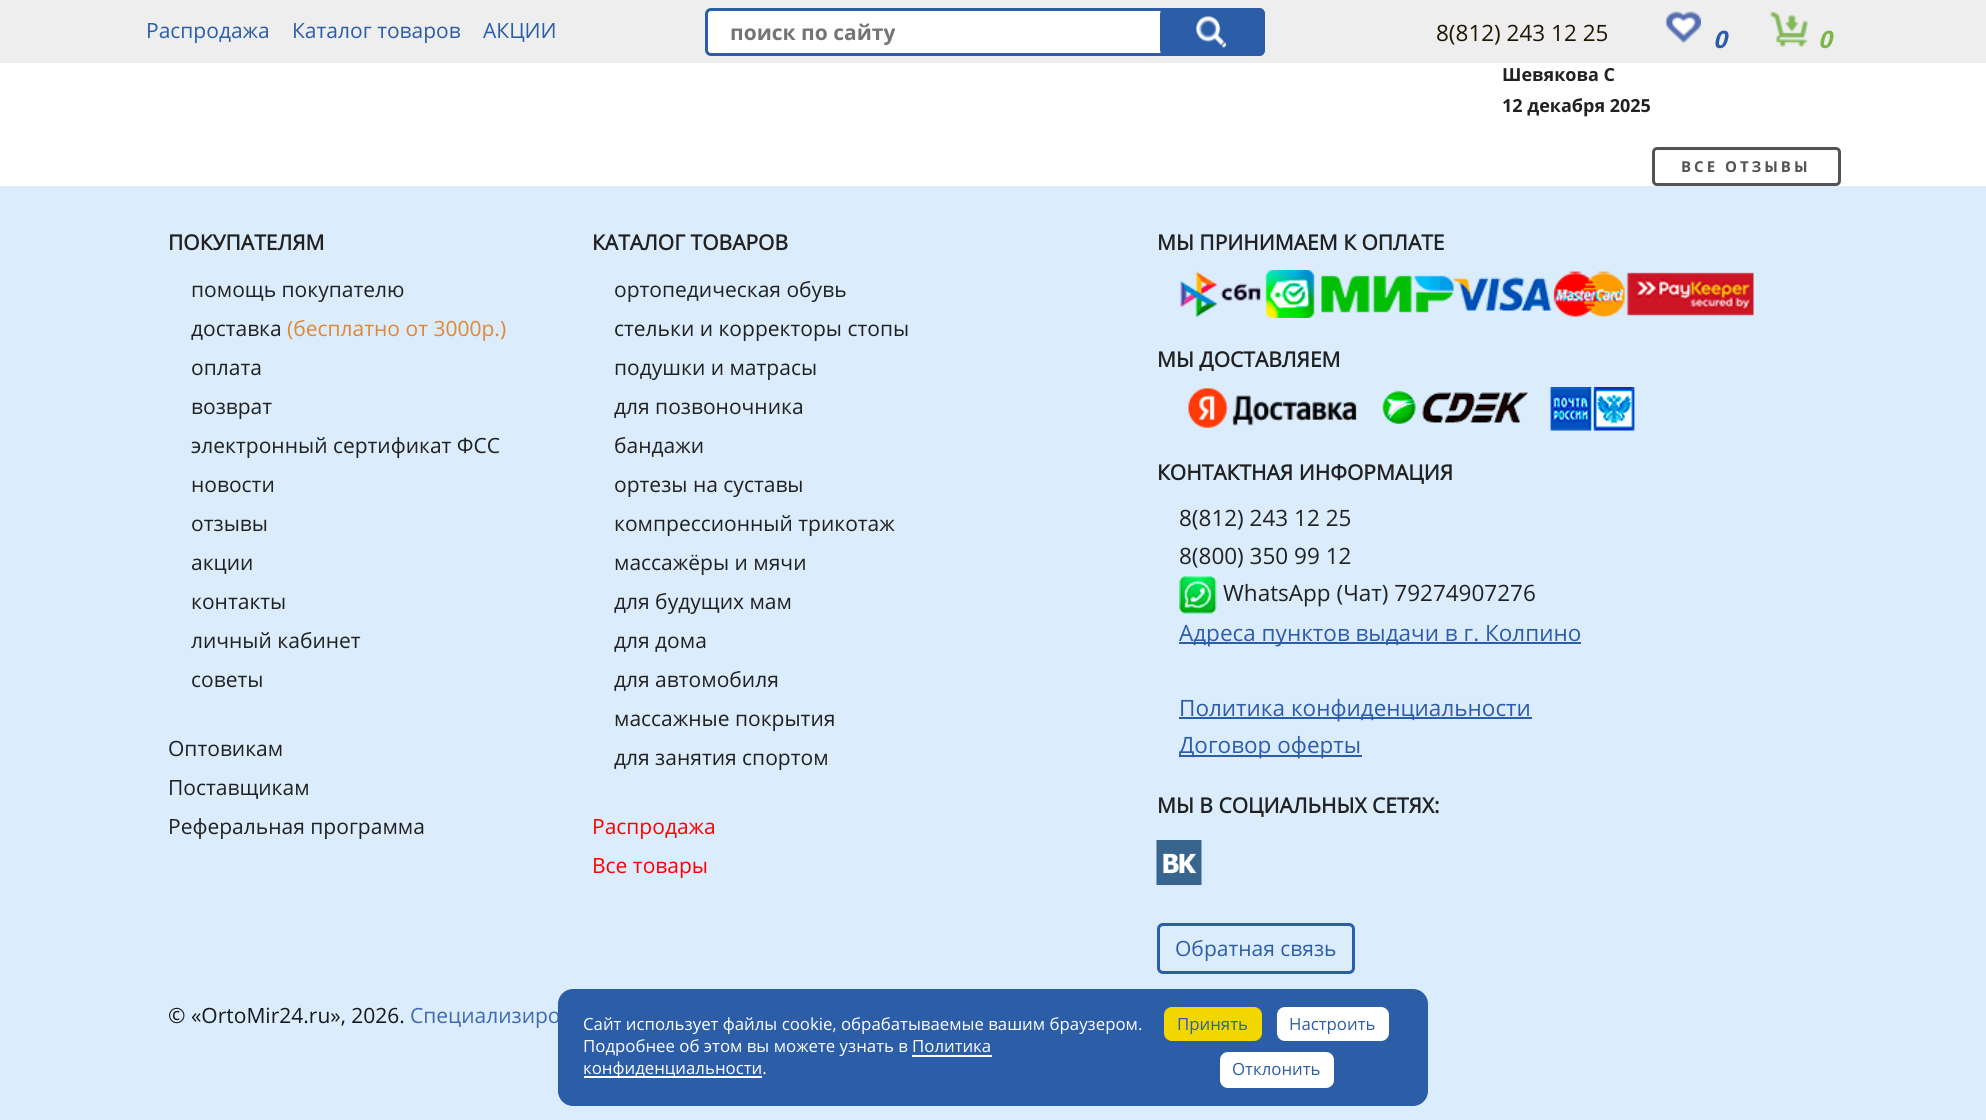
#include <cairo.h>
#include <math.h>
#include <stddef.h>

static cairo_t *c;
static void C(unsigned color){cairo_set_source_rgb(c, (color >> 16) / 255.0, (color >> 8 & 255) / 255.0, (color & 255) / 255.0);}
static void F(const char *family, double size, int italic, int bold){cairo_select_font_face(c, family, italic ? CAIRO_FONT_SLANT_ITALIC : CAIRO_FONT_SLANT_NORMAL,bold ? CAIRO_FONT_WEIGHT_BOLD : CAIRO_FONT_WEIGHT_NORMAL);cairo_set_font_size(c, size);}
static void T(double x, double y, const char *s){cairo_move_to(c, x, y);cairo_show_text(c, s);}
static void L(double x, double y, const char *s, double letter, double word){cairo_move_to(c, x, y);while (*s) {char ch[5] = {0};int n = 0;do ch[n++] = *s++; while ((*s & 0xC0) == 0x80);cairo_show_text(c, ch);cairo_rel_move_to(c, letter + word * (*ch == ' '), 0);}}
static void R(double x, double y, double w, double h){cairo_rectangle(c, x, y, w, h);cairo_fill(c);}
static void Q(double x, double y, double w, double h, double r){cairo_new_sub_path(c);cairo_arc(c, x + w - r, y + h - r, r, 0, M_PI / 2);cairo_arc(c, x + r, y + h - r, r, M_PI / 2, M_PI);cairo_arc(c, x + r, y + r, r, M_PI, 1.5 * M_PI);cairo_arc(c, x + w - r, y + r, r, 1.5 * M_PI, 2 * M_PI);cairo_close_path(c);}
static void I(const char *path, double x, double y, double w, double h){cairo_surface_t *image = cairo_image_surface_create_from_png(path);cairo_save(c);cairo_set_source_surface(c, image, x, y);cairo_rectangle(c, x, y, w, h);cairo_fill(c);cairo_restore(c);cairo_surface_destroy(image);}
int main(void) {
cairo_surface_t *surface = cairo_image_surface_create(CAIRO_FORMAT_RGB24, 1986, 1120);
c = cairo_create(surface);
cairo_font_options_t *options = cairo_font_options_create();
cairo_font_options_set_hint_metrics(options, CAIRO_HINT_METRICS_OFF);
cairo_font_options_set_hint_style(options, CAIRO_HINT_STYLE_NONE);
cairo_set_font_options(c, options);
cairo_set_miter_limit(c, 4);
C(0xffffff);
cairo_paint(c);
C(0xeeeeee);
R(0,0,1986,63);
F("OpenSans",21,0,0);
C(0x2c5da7);
T(146,38,"Распродажа");
T(292,38,"Каталог товаров");
T(483,38,"АКЦИИ");
C(0xffffff);
Q(706.5,9.5,557,45,4.5);
cairo_fill_preserve(c);
C(0x2c5da7);
cairo_set_line_width(c,3);
cairo_stroke(c);
F("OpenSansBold",21,0,1);
C(0x757575);
T(730,40,"поиск по сайту");
C(0x2c5da7);
Q(1160,8,105,48,6);
cairo_fill(c);
I("1.png",1195,16,32,32);
F("OpenSans",22.5,0,0);
C(0x201600);
T(1436,41,"8(812) 243 12 25");
I("2.png",1665,11,36,33);
F("OpenSansBold",24,1,1);
C(0x2c5da7);
T(1713,48,"0");
I("3.png",1769,12,39,35);
C(0x7bb746);
T(1818,48,"0");
F("OpenSansBold",18,0,1);
C(0x212121);
T(1502,81,"Шевякова С");
T(1502,112,"12 декабря 2025");
Q(1653.5,148.5,186,36,3.5);
C(0x535353);
cairo_stroke(c);
F("OpenSansBold",15,0,1);
L(1681,172,"ВСЕ ОТЗЫВЫ",3,0);
C(0xdbecfd);
R(0,186,1986,934);
F("OpenSans",21,0,1);
C(0x212121);
T(168,250,"ПОКУПАТЕЛЯМ");
F("OpenSans",21,0,0);
T(191,297,"помощь покупателю");
T(191,336,"доставка");
C(0xe08734);
T(287,336,"(бесплатно от 3000р.)");
C(0x212121);
T(191,375,"оплата");
T(191,414,"возврат");
T(191,453,"электронный сертификат ФСС");
T(191,492,"новости");
T(191,531,"отзывы");
T(191,570,"акции");
T(191,609,"контакты");
T(191,648,"личный кабинет");
T(191,687,"советы");
T(168,756,"Оптовикам");
T(168,795,"Поставщикам");
T(168,834,"Реферальная программа");
F("OpenSans",21,0,1);
T(592,250,"КАТАЛОГ ТОВАРОВ");
F("OpenSans",21,0,0);
T(614,297,"ортопедическая обувь");
T(614,336,"стельки и корректоры стопы");
T(614,375,"подушки и матрасы");
T(614,414,"для позвоночника");
T(614,453,"бандажи");
T(614,492,"ортезы на суставы");
T(614,531,"компрессионный трикотаж");
T(614,570,"массажёры и мячи");
T(614,609,"для будущих мам");
T(614,648,"для дома");
T(614,687,"для автомобиля");
T(614,726,"массажные покрытия");
T(614,765,"для занятия спортом");
C(0xff0000);
T(592,834,"Распродажа");
T(592,873,"Все товары");
F("OpenSans",21,0,1);
C(0x212121);
T(1157,250,"МЫ ПРИНИМАЕМ К ОПЛАТЕ");
I("4.png",1180,270,574,48);
T(1157,367,"МЫ ДОСТАВЛЯЕМ");
I("5.png",1188,387,447,44);
T(1157,480,"КОНТАКТНАЯ ИНФОРМАЦИЯ");
F("OpenSans",22.5,0,0);
T(1179,526,"8(812) 243 12 25");
T(1179,564,"8(800) 350 99 12");
I("6.png",1179,576,38,38);
T(1223,601,"WhatsApp (Чат) 79274907276");
C(0x2c5da7);
R(1179,642,402,2);
T(1179,641,"Адреса пунктов выдачи в г. Колпино");
R(1179,717,353,2);
T(1179,716,"Политика конфиденциальности");
R(1179,755,183,2);
T(1179,753,"Договор оферты");
F("OpenSans",21,0,1);
C(0x212121);
T(1157,813,"МЫ В СОЦИАЛЬНЫХ СЕТЯХ:");
I("7.png",1156,840,46,45);
Q(1158.5,924.5,195,48,4.5);
C(0x2c5da7);
cairo_stroke(c);
F("OpenSans",21,0,0);
T(1175,956,"Обратная связь");
C(0x161819);
T(168,1023,"© «OrtoMir24.ru», 2026.");
C(0x3e6bb0);
T(410,1023,"Специализиро");
C(0x2c5da7);
Q(558,989,870,117,15);
cairo_fill(c);
F("OpenSans",16.8,0,0);
C(0xffffff);
T(583,1030,"Сайт использует файлы cookie, обрабатываемые вашим браузером.");
T(583,1052,"Подробнее об этом вы можете узнать в");
T(912,1052,"Политика");
R(912,1055,80,2);
R(584,1076,178,2);
T(583,1074,"конфиденциальности.");
C(0xf1d600);
Q(1164,1007,98,34,8);
cairo_fill(c);
C(0x2c5da7);
T(1177,1030,"Принять");
C(0xffffff);
Q(1277,1007,112,34,8);
cairo_fill(c);
C(0x2c5da7);
T(1289,1030,"Настроить");
C(0xffffff);
Q(1220,1052,114,36,8);
cairo_fill(c);
C(0x2c5da7);
T(1232,1075,"Отклонить");
cairo_surface_write_to_png(surface, "o.png");
cairo_font_options_destroy(options);
cairo_destroy(c);
cairo_surface_destroy(surface);
return 0;
}
